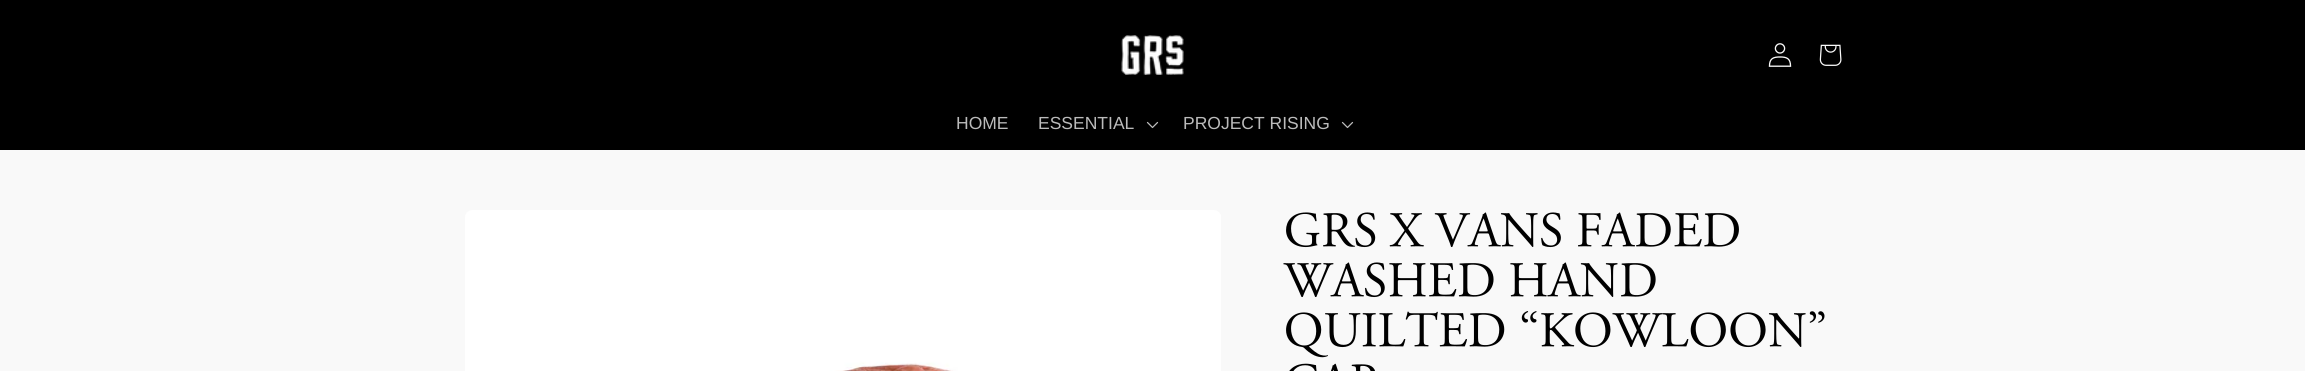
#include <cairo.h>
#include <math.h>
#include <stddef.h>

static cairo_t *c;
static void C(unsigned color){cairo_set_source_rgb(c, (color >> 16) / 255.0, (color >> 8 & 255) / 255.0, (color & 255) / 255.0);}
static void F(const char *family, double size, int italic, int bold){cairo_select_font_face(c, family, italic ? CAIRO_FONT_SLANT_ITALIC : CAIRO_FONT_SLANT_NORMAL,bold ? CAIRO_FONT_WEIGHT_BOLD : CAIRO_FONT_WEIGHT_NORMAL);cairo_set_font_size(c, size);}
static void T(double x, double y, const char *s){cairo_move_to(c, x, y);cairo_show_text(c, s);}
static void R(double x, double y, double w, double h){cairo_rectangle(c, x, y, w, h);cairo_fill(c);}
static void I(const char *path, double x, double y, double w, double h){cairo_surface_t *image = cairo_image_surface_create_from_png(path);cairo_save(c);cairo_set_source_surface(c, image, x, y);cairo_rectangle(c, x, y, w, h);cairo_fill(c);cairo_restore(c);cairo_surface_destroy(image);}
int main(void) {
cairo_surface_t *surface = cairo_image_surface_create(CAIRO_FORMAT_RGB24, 2305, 371);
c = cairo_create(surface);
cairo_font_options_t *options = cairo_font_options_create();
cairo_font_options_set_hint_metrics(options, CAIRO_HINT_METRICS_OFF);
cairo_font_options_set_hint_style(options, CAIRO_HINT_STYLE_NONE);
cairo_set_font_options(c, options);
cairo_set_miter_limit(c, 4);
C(0xf9f9f9);
cairo_paint(c);
C(0x000000);
R(0,0,2305,150);
I("1.png",1121,35,63,40);
I("2.png",1768,43,24,24);
I("3.png",1819,44,23,22);
F("Liberation Sans",17.5,0,0);
C(0xbbbbbb);
T(956,129,"HOME");
T(1038,129,"ESSENTIAL");
I("4.png",1146,121,13,8);
T(1183,129,"PROJECT RISING");
I("4.png",1341,121,13,8);
I("5.png",465,210,756,161);
I("6.png",1286,212,453,36);
I("7.png",1283,262,373,36);
I("8.png",1286,311,539,47);
I("9.png",1289,363,86,8);
cairo_surface_write_to_png(surface, "o.png");
cairo_font_options_destroy(options);
cairo_destroy(c);
cairo_surface_destroy(surface);
return 0;
}
